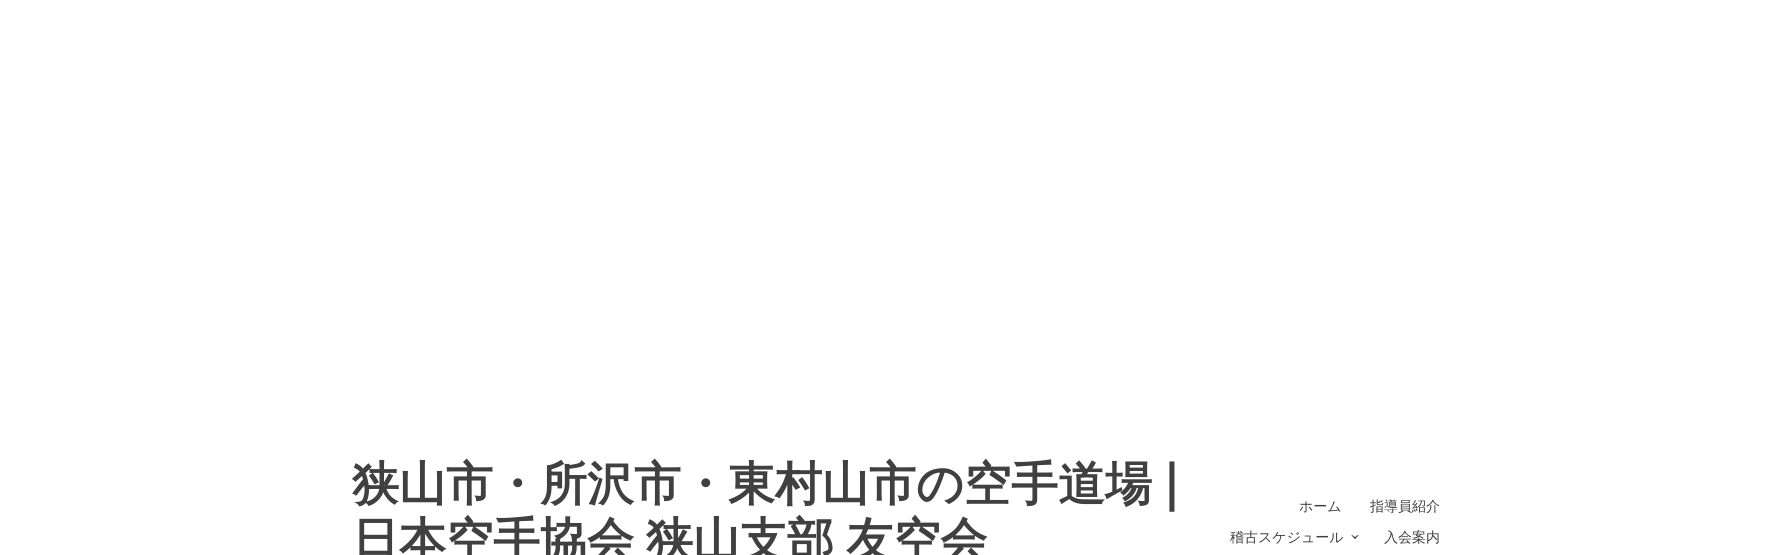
#include <cairo.h>
#include <math.h>
#include <stddef.h>

static cairo_t *c;
static void C(unsigned color){cairo_set_source_rgb(c, (color >> 16) / 255.0, (color >> 8 & 255) / 255.0, (color & 255) / 255.0);}
static void F(const char *family, double size, int italic, int bold){cairo_select_font_face(c, family, italic ? CAIRO_FONT_SLANT_ITALIC : CAIRO_FONT_SLANT_NORMAL,bold ? CAIRO_FONT_WEIGHT_BOLD : CAIRO_FONT_WEIGHT_NORMAL);cairo_set_font_size(c, size);}
static void T(double x, double y, const char *s){cairo_move_to(c, x, y);cairo_show_text(c, s);}
static void L(double x, double y, const char *s, double letter, double word){cairo_move_to(c, x, y);while (*s) {char ch[5] = {0};int n = 0;do ch[n++] = *s++; while ((*s & 0xC0) == 0x80);cairo_show_text(c, ch);cairo_rel_move_to(c, letter + word * (*ch == ' '), 0);}}
int main(void) {
cairo_surface_t *surface = cairo_image_surface_create(CAIRO_FORMAT_RGB24, 1792, 555);
c = cairo_create(surface);
cairo_font_options_t *options = cairo_font_options_create();
cairo_font_options_set_hint_metrics(options, CAIRO_HINT_METRICS_OFF);
cairo_font_options_set_hint_style(options, CAIRO_HINT_STYLE_NONE);
cairo_set_font_options(c, options);
cairo_set_miter_limit(c, 4);
C(0xffffff);
cairo_paint(c);
F("WenQuanYi Zen Hei",47,0,1);
C(0x404040);
T(352,500,"狭山市・所沢市・東村山市の空手道場");
F("Libre Baskerville",47,0,1);
T(1165,500,"|");
F("WenQuanYi Zen Hei",47,0,1);
L(352,556,"日本空手協会 狭山支部 友空会",0,-2);
F("WenQuanYi Zen Hei Medium",14,0,0);
T(1299,511,"ホーム");
T(1370,511,"指導員紹介");
T(1230,542,"稽古スケジュール");
F("Libre Baskerville",23,0,0);
cairo_save(c);
cairo_translate(c,1349,533);
cairo_rotate(c,90 * M_PI / 180);
T(0,0,"›");
cairo_restore(c);
F("WenQuanYi Zen Hei Medium",14,0,0);
T(1384,542,"入会案内");
cairo_surface_write_to_png(surface, "o.png");
cairo_font_options_destroy(options);
cairo_destroy(c);
cairo_surface_destroy(surface);
return 0;
}
